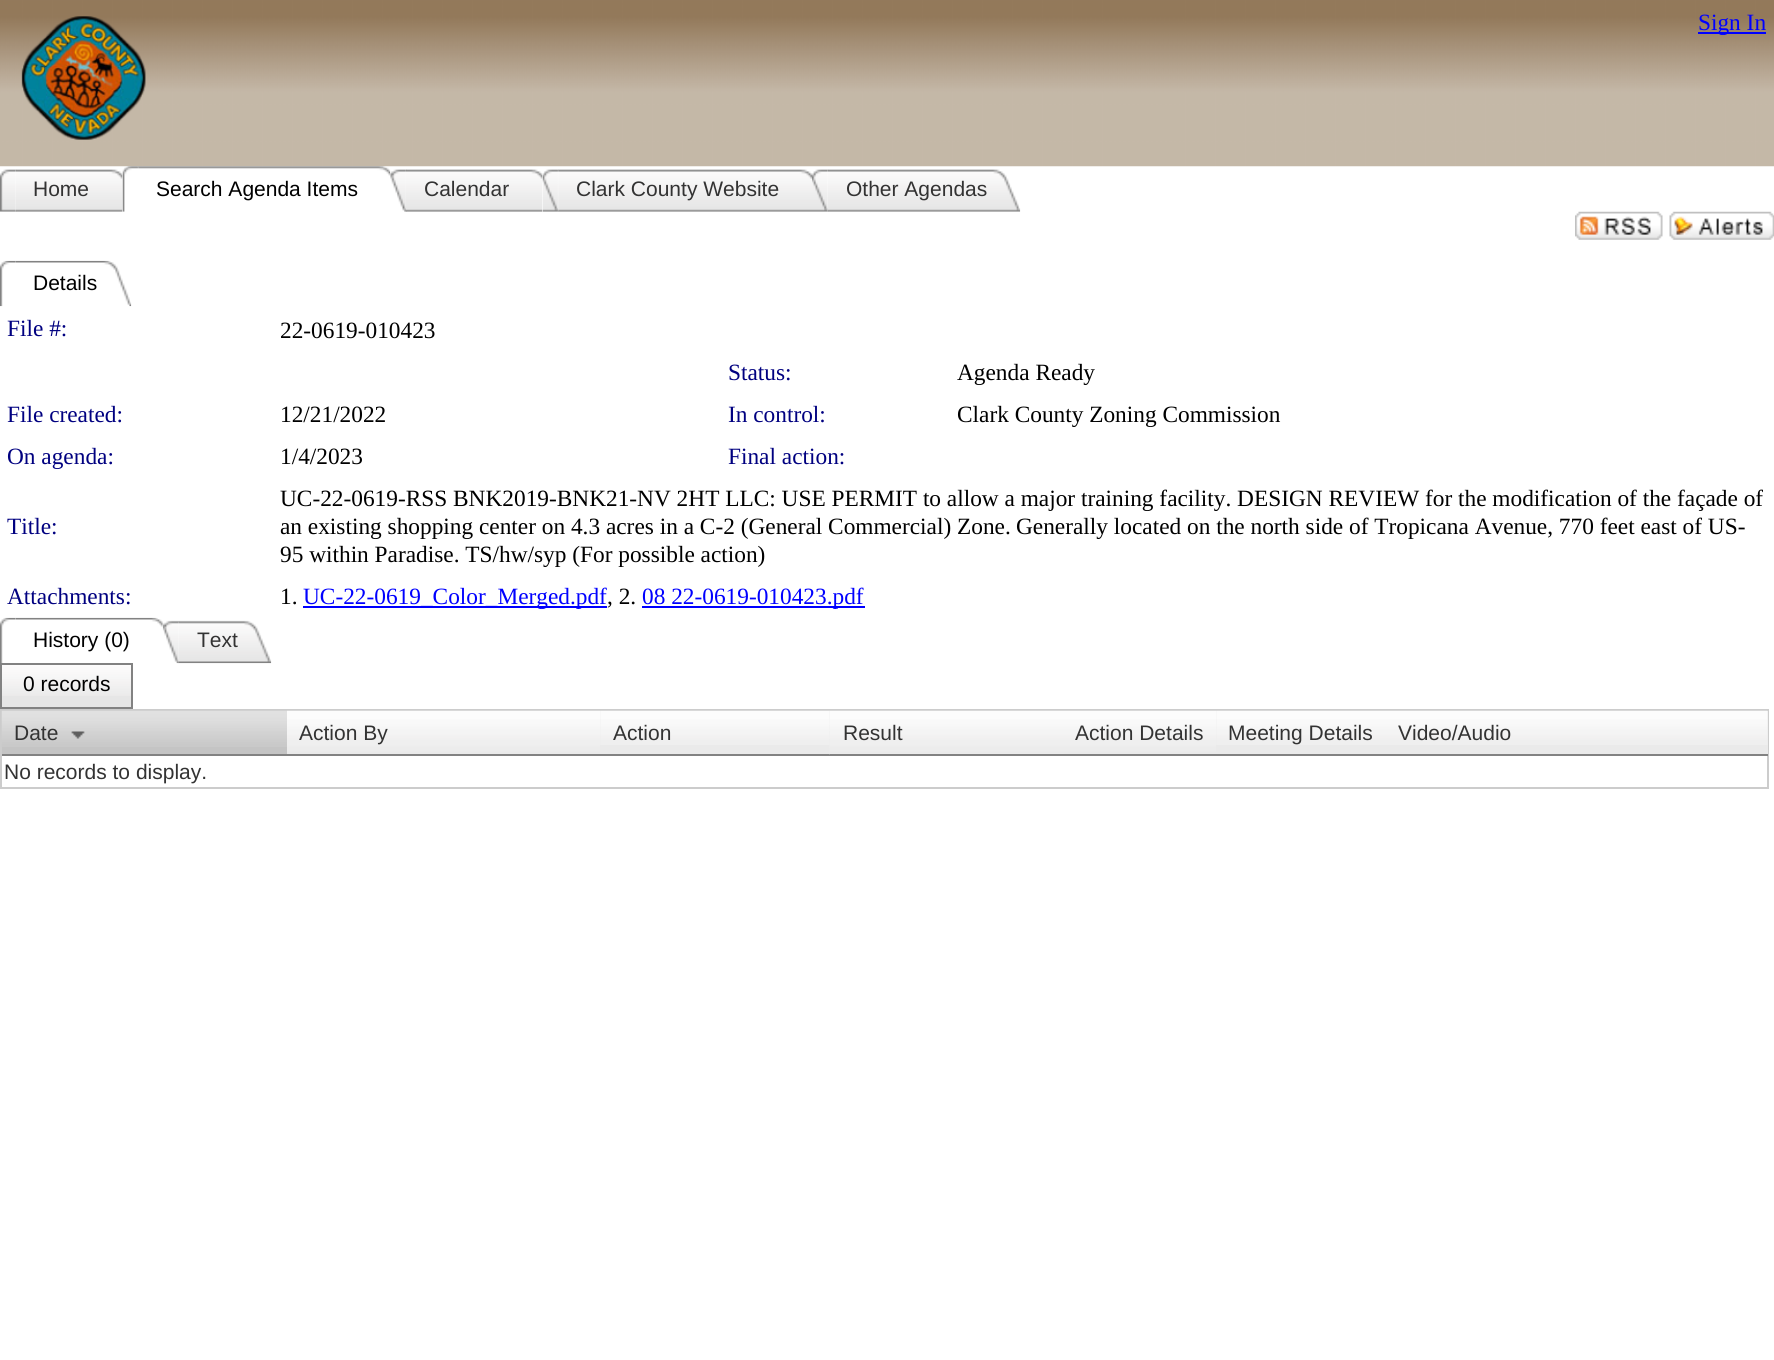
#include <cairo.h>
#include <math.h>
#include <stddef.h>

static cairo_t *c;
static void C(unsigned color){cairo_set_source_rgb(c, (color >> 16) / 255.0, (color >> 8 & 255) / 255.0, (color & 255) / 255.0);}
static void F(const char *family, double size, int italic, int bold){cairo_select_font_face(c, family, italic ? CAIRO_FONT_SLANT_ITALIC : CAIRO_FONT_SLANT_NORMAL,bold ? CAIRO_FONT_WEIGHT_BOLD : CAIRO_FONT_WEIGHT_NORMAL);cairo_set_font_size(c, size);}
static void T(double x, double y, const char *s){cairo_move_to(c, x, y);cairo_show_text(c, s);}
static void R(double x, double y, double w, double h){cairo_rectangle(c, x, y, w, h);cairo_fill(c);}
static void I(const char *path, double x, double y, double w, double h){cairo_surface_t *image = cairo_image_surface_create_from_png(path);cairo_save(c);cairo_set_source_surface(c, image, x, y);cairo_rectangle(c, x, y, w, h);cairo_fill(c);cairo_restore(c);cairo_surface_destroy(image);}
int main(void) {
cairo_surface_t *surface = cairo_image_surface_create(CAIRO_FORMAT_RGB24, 1774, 1360);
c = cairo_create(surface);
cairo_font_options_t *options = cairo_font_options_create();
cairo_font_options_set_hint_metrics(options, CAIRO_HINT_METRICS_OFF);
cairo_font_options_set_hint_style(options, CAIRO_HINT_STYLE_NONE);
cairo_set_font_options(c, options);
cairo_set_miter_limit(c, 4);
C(0xffffff);
cairo_paint(c);
I("1.png",0,0,1774,167);
C(0x0000ff);
R(1698,32,68,2);
F("Liberation Serif",23.33,0,0);
T(1698,30,"Sign In");
I("2.png",0,169,17,43);
I("3.png",15,169,108,43);
F("Liberation Sans",21,0,0);
C(0x333333);
T(33,196,"Home");
I("4.png",122,166,17,46);
I("5.png",138,166,253,10);
C(0x000000);
T(156,196,"Search Agenda Items");
I("6.png",390,169,17,43);
I("7.png",406,169,137,43);
C(0x333333);
T(424,196,"Calendar");
I("8.png",542,169,17,43);
I("9.png",558,169,254,43);
T(576,196,"Clark County Website");
I("10.png",812,169,17,43);
I("11.png",827,169,194,43);
T(846,196,"Other Agendas");
I("12.png",1575,211,88,29);
I("13.png",1669,211,105,29);
I("14.png",0,260,16,47);
I("15.png",15,260,117,47);
C(0x000000);
T(33,290,"Details");
F("Liberation Serif",23.33,0,0);
C(0x000080);
T(7,336,"File #:");
C(0x000000);
T(280,338,"22-0619-010423");
C(0x000080);
T(728,380,"Status:");
C(0x000000);
T(957,380,"Agenda Ready");
C(0x000080);
T(7,422,"File created:");
C(0x000000);
T(280,422,"12/21/2022");
C(0x000080);
T(728,422,"In control:");
C(0x000000);
T(957,422,"Clark County Zoning Commission");
C(0x000080);
T(7,464,"On agenda:");
C(0x000000);
T(280,464,"1/4/2023");
C(0x000080);
T(728,464,"Final action:");
T(7,534,"Title:");
C(0x000000);
T(280,506,"UC-22-0619-RSS BNK2019-BNK21-NV 2HT LLC: USE PERMIT to allow a major training facility. DESIGN REVIEW for the modification of the façade of");
T(280,534,"an existing shopping center on 4.3 acres in a C-2 (General Commercial) Zone.");
T(1016,534,"Generally located on the north side of Tropicana Avenue, 770 feet east of US-");
T(280,562,"95 within Paradise. TS/hw/syp (For possible action)");
C(0x000080);
T(7,604,"Attachments:");
C(0x000000);
T(280,604,"1.");
C(0x0000ff);
R(303,606,304,2);
T(303,604,"UC-22-0619_Color_Merged.pdf");
C(0x000000);
T(607,604,", 2.");
C(0x0000ff);
R(642,606,223,2);
T(642,604,"08 22-0619-010423.pdf");
I("16.png",0,617,17,46);
I("17.png",15,617,148,10);
F("Liberation Sans",21,0,0);
C(0x000000);
T(33,647,"History (0)");
I("18.png",162,620,18,44);
I("19.png",178,620,94,44);
C(0x333333);
T(197,647,"Text");
C(0xe6e6e6);
R(2,696,129,11);
I("20.png",2,665,129,31);
cairo_rectangle(c,1,664,131,44);
C(0x828282);
cairo_stroke(c);
C(0x000000);
T(23,691,"0 records");
cairo_rectangle(c,1,710,1767,78);
C(0xcccccc);
cairo_stroke(c);
C(0xc4c4c4);
R(2,747,285,7);
I("21.png",1,710,286,37);
C(0x828282);
R(2,754,828,2);
C(0x333333);
T(14,740,"Date");
I("22.png",71,731,14,8);
C(0xeaeaea);
R(287,753,313,1);
I("23.png",287,710,314,43);
C(0x333333);
T(299,740,"Action By");
C(0xeaeaea);
R(600,711,230,43);
I("24.png",600,710,230,35);
C(0x333333);
T(613,740,"Action");
I("25.png",829,710,235,45);
C(0x828282);
R(830,754,938,2);
C(0x333333);
T(843,740,"Result");
C(0xeaeaea);
R(1064,753,152,1);
I("26.png",1064,710,153,43);
C(0x333333);
T(1075,740,"Action Details");
C(0xeaeaea);
R(1216,711,552,43);
I("27.png",1216,710,170,35);
C(0x333333);
T(1228,740,"Meeting Details");
I("28.png",1386,710,382,35);
T(1398,740,"Video/Audio");
T(4,779,"No records to display.");
cairo_surface_write_to_png(surface, "o.png");
cairo_font_options_destroy(options);
cairo_destroy(c);
cairo_surface_destroy(surface);
return 0;
}
